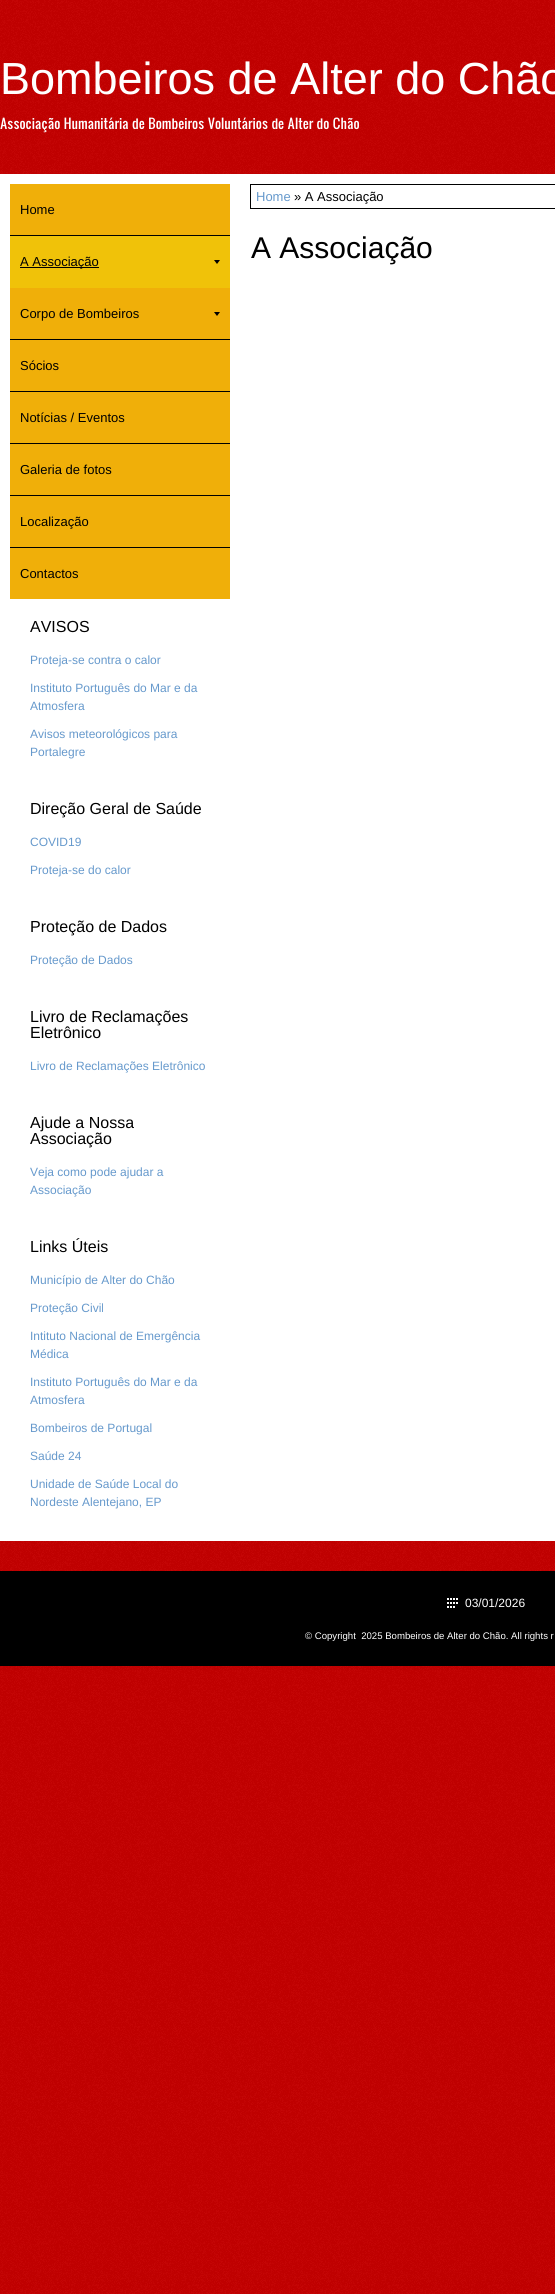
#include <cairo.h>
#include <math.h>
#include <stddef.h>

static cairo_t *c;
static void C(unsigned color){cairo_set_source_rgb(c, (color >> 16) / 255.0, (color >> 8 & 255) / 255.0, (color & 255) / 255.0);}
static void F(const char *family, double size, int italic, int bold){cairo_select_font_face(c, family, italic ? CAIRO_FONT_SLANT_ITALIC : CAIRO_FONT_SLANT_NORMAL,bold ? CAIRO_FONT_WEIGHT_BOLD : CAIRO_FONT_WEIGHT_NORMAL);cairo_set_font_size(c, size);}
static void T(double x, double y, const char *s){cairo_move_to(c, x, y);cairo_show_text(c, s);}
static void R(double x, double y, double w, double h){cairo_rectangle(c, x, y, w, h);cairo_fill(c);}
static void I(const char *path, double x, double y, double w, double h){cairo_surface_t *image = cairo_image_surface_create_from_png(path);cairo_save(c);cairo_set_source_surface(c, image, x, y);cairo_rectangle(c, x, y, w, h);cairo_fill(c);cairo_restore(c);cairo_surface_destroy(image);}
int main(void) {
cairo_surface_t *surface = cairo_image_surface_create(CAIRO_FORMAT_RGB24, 555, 2294);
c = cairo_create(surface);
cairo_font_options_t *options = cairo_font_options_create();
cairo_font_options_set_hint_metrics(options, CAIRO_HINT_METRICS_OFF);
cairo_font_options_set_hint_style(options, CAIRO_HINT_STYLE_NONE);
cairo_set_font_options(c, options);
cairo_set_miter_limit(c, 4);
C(0xff0000);
cairo_paint(c);
I("1.png",0,0,555,2294);
F("Liberation Sans",45,0,0);
C(0xffffff);
T(0,94,"Bombeiros de Alter do Chão");
F("Oswald",13,0,0);
T(0,129,"Associação Humanitária de Bombeiros Voluntários de Alter do Chão");
R(0,174,555,1367);
C(0xf0af09);
R(10,184,220,51);
C(0x000000);
R(10,235,220,1);
F("Liberation Sans",13,0,0);
T(20,214,"Home");
C(0xf0c209);
R(10,236,220,52);
C(0x000000);
R(20,267,79,1);
T(20,266,"A Associação");
cairo_new_path(c);
cairo_move_to(c,214,260);
cairo_line_to(c,220,260);
cairo_line_to(c,217,264);
cairo_close_path(c);
cairo_fill(c);
C(0xf0af09);
R(10,288,220,51);
C(0x000000);
R(10,339,220,1);
T(20,318,"Corpo de Bombeiros");
cairo_new_path(c);
cairo_move_to(c,214,312);
cairo_line_to(c,220,312);
cairo_line_to(c,217,316);
cairo_close_path(c);
cairo_fill(c);
C(0xf0af09);
R(10,340,220,51);
C(0x000000);
R(10,391,220,1);
T(20,370,"Sócios");
C(0xf0af09);
R(10,392,220,51);
C(0x000000);
R(10,443,220,1);
T(20,422,"Notícias / Eventos");
C(0xf0af09);
R(10,444,220,51);
C(0x000000);
R(10,495,220,1);
T(20,474,"Galeria de fotos");
C(0xf0af09);
R(10,496,220,51);
C(0x000000);
R(10,547,220,1);
T(20,526,"Localização");
C(0xf0af09);
R(10,548,220,51);
C(0x000000);
T(20,578,"Contactos");
F("Liberation Sans",16,0,0);
T(30,632,"AVISOS");
F("Liberation Sans",12,0,0);
C(0x6699cc);
T(30,664,"Proteja-se contra o calor");
T(30,692,"Instituto Português do Mar e da");
T(30,710,"Atmosfera");
T(30,738,"Avisos meteorológicos para");
T(30,756,"Portalegre");
F("Liberation Sans",16,0,0);
C(0x000000);
T(30,814,"Direção Geral de Saúde");
F("Liberation Sans",12,0,0);
C(0x6699cc);
T(30,846,"COVID19");
T(30,874,"Proteja-se do calor");
F("Liberation Sans",16,0,0);
C(0x000000);
T(30,932,"Proteção de Dados");
F("Liberation Sans",12,0,0);
C(0x6699cc);
T(30,964,"Proteção de Dados");
F("Liberation Sans",16,0,0);
C(0x000000);
T(30,1022,"Livro de Reclamações");
T(30,1038,"Eletrônico");
F("Liberation Sans",12,0,0);
C(0x6699cc);
T(30,1070,"Livro de Reclamações Eletrônico");
F("Liberation Sans",16,0,0);
C(0x000000);
T(30,1128,"Ajude a Nossa");
T(30,1144,"Associação");
F("Liberation Sans",12,0,0);
C(0x6699cc);
T(30,1176,"Veja como pode ajudar a");
T(30,1194,"Associação");
F("Liberation Sans",16,0,0);
C(0x000000);
T(30,1252,"Links Úteis");
F("Liberation Sans",12,0,0);
C(0x6699cc);
T(30,1284,"Município de Alter do Chão");
T(30,1312,"Proteção Civil");
T(30,1340,"Intituto Nacional de Emergência");
T(30,1358,"Médica");
T(30,1386,"Instituto Português do Mar e da");
T(30,1404,"Atmosfera");
T(30,1432,"Bombeiros de Portugal");
T(30,1460,"Saúde 24");
T(30,1488,"Unidade de Saúde Local do");
T(30,1506,"Nordeste Alentejano, EP");
cairo_rectangle(c,250.5,184.5,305,24);
C(0x000000);
cairo_set_line_width(c,1);
cairo_stroke(c);
F("Liberation Sans",13,0,0);
C(0x6699cc);
T(256,201,"Home");
C(0x000000);
T(294,201,"» A Associação");
F("Liberation Sans",30,0,0);
T(251,258,"A Associação");
R(0,1571,555,95);
I("2.png",447,1598,11,10);
F("Liberation Sans",12,0,0);
C(0xffffff);
T(465,1607,"03/01/2026");
F("Liberation Sans",9.6,0,0);
T(305,1639,"© Copyright  2025 Bombeiros de Alter do Chão. All rights r");
cairo_surface_write_to_png(surface, "o.png");
cairo_font_options_destroy(options);
cairo_destroy(c);
cairo_surface_destroy(surface);
return 0;
}
